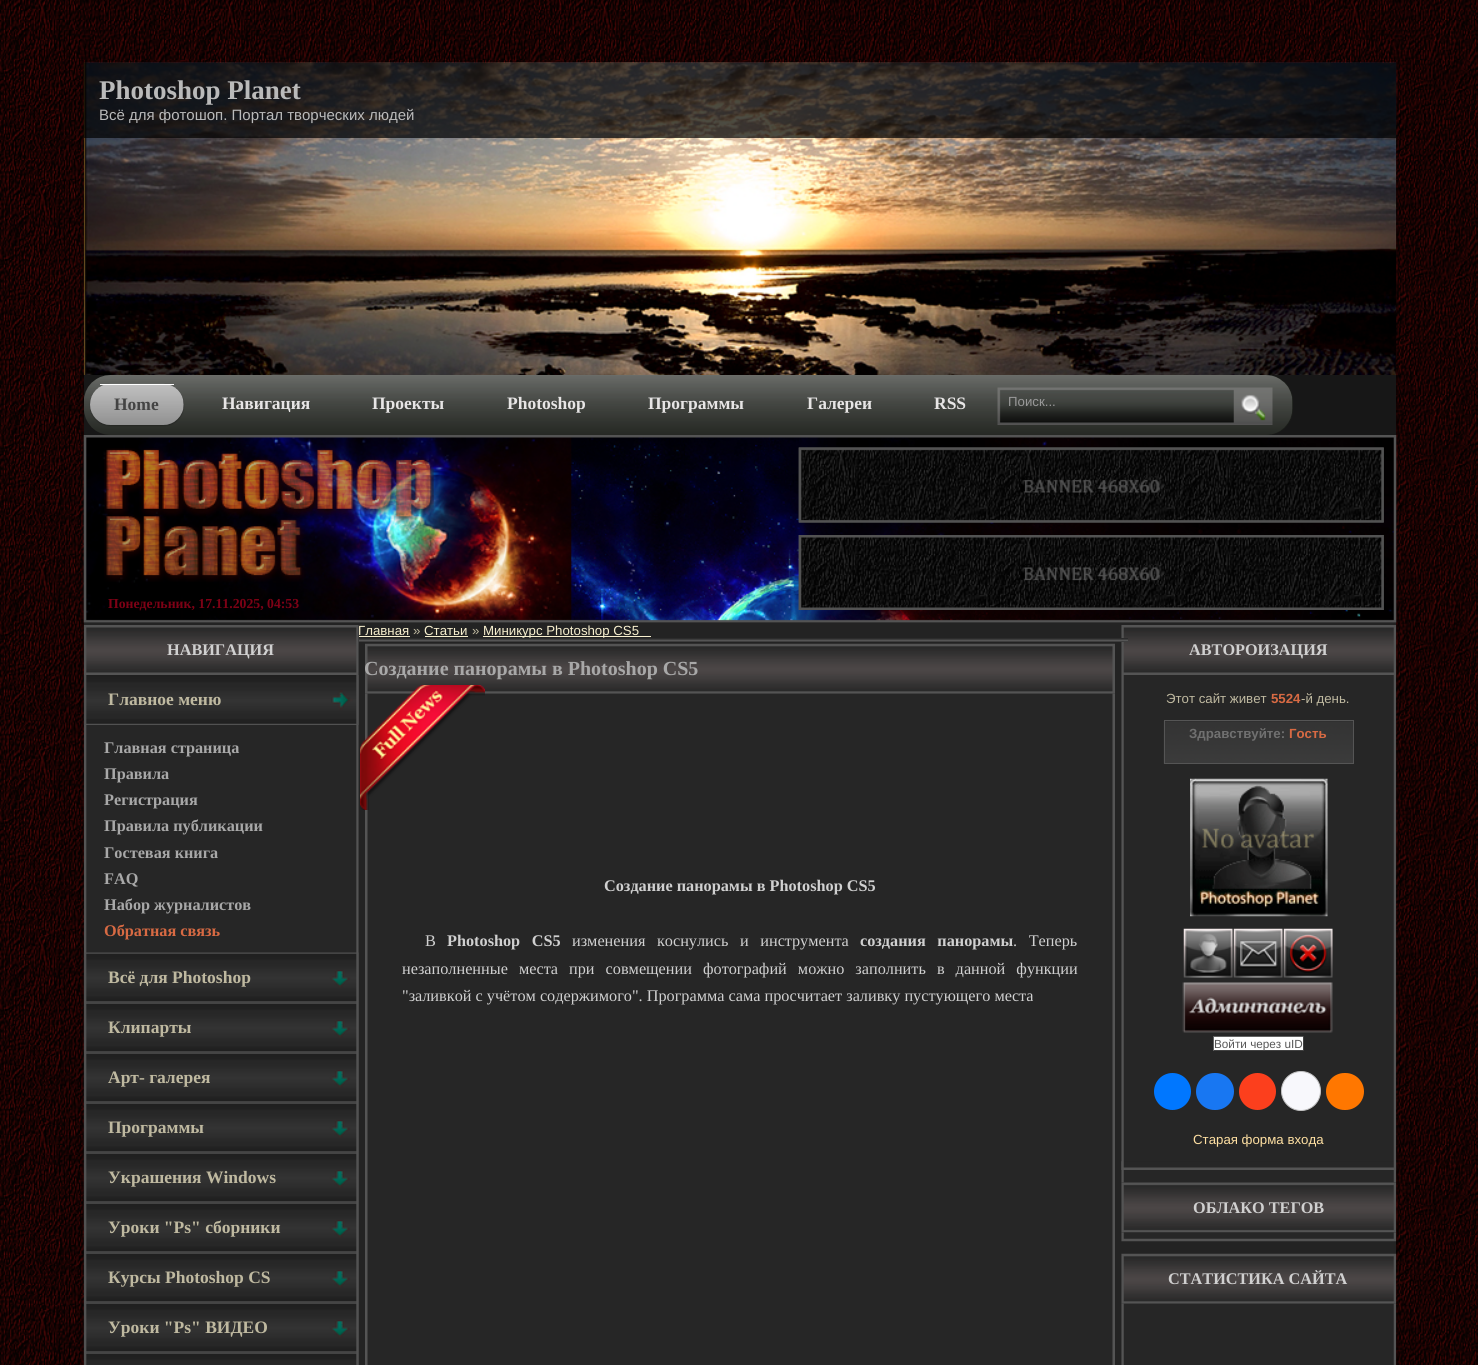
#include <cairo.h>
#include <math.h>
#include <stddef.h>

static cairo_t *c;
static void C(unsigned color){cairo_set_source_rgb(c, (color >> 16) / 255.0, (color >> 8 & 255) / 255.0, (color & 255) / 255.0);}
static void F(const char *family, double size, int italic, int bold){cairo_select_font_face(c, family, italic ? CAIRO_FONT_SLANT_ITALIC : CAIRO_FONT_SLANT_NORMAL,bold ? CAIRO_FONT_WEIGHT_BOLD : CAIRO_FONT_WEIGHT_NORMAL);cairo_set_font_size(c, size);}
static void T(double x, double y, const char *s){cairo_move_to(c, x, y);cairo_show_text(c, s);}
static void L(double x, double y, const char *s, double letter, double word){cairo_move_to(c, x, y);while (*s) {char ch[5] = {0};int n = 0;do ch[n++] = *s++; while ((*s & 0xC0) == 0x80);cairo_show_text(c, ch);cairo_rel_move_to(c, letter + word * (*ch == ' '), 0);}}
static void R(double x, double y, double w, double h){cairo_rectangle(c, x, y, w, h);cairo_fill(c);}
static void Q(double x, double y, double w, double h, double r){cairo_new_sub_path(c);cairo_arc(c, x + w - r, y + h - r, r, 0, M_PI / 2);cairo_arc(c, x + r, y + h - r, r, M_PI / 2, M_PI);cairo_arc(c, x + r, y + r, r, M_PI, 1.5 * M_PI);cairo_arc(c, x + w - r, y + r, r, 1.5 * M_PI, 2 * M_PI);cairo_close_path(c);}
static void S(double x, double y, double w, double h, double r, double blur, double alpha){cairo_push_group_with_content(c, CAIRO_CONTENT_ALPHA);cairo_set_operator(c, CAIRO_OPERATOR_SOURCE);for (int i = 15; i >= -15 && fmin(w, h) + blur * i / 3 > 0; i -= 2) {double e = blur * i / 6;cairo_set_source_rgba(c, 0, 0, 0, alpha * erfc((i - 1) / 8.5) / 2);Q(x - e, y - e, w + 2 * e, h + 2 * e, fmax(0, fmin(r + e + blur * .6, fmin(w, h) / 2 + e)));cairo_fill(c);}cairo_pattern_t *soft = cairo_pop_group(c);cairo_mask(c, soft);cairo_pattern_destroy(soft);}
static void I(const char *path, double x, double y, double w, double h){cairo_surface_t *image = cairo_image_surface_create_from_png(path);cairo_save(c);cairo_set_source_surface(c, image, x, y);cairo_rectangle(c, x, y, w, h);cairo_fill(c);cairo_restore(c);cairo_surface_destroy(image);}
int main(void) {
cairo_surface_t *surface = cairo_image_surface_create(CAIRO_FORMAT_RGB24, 1478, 1365);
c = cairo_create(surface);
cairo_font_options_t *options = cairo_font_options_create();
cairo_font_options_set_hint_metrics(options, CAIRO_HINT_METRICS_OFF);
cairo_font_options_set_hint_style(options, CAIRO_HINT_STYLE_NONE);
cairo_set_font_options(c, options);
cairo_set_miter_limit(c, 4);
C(0xffffff);
cairo_paint(c);
I("1.png",0,0,1478,1365);
C(0x171717);
R(84,375,1312,248);
I("2.png",83,62,1314,313);
cairo_set_source_rgba(c,0,0,0,0.7);
R(84,63,1312,75);
F("Liberation Serif",27,0,1);
C(0xbababa);
T(99,99,"Photoshop Planet");
F("Liberation Sans",15,0,0);
T(99,120,"Всё для фотошоп. Портал творческих людей");
C(0x1b1e19);
Q(84,375,1209,60,26);
cairo_fill(c);
I("3.png",84,375,1209,60);
C(0x000000);
S(90,385,94,41,20.5,.5,.2);
C(0x2c2c2c);
Q(90,384,94,41,20.5);
cairo_fill(c);
I("4.png",90,383,94,42);
C(0xffffff);
R(100,384,74,1);
F("Liberation Serif",17.5,0,1);
C(0x444444);
T(114,410,"Home");
C(0xe7e5e5);
T(222,409,"Навигация");
T(372,409,"Проекты");
T(507,409,"Photoshop");
T(648,409,"Программы");
T(807,409,"Галереи");
T(934,409,"RSS");
I("5.png",997,387,276,38);
F("Liberation Sans",13.25,0,0);
C(0x999999);
T(1008,406,"Поиск...");
I("6.png",83,435,1314,188);
I("7.png",104,448,330,134);
I("8.png",798,447,586,76);
I("9.png",798,447,586,76);
F("Liberation Serif",13.75,0,1);
C(0x7d0115);
T(108,608,"Понедельник, 17.11.2025, 04:53");
I("10.png",798,535,586,75);
I("11.png",798,535,586,75);
C(0x232323);
R(84,623,1312,742);
F("Liberation Sans",13.25,0,0);
C(0xf8f0cf);
T(358,635,"Главная");
R(359,636,51,1);
C(0xbfb9a0);
T(413,635,"»");
C(0xf8f0cf);
T(424,635,"Статьи");
R(425,636,43,1);
C(0xbfb9a0);
T(472,635,"»");
C(0xf8f0cf);
R(483,636,168,1);
T(483,635,"Миникурс Photoshop CS5");
I("27.png",1121,625,276,50);
C(0x3e3e3e);
R(359,639,769,3);
C(0x2c2c2c);
R(359,638,769,1);
C(0x555555);
R(359,640,769,1);
I("12.png",83,625,276,50);
F("Liberation Serif",16.25,0,1);
C(0xd0d0d0);
T(167,655,"НАВИГАЦИЯ");
I("13.png",83,675,276,690);
I("14.png",83,675,276,50);
F("Liberation Serif",17.5,0,1);
C(0xbfb9a0);
T(108,705,"Главное меню");
F("Liberation Serif",16.25,0,1);
C(0xa8a8a8);
T(104,753,"Главная страница");
T(104,779,"Правила");
T(104,805,"Регистрация");
T(104,831,"Правила публикации");
T(104,858,"Гостевая книга");
T(104,884,"FAQ");
T(104,910,"Набор журналистов");
C(0xd86a43);
T(104,936,"Обратная связь");
I("15.png",83,952,276,51);
F("Liberation Serif",17.5,0,1);
C(0xbfb9a0);
T(108,983,"Всё для Photoshop");
I("16.png",83,1002,276,51);
T(108,1033,"Клипарты");
I("17.png",83,1052,276,51);
T(108,1083,"Арт- галерея");
I("18.png",83,1102,276,51);
T(108,1133,"Программы");
I("19.png",83,1152,276,51);
T(108,1183,"Украшения Windows");
I("20.png",83,1202,276,51);
T(108,1233,"Уроки \"Ps\" сборники");
I("21.png",83,1252,276,51);
T(108,1283,"Курсы Photoshop CS");
I("22.png",83,1302,276,51);
T(108,1333,"Уроки \"Ps\" ВИДЕО");
I("23.png",83,1352,276,13);
I("24.png",365,643,750,51);
F("Liberation Serif",20,0,1);
C(0xa8a8a8);
T(364,675,"Создание панорамы в Photoshop CS5");
I("25.png",365,693,750,672);
I("26.png",360,685,125,125);
F("Liberation Serif",16.25,0,1);
C(0xd0d0d0);
T(604,891,"Создание панорамы в Photoshop CS5");
F("Liberation Serif",16.25,0,0);
T(425,946,"В");
F("Liberation Serif",16.25,0,1);
L(447,946,"Photoshop CS5",0,7.5);
F("Liberation Serif",16.25,0,0);
L(572,946,"изменения коснулись и инструмента",0,7.5);
F("Liberation Serif",16.25,0,1);
L(860,946,"создания панорамы",0,7.5);
F("Liberation Serif",16.25,0,0);
L(1013,946,". Теперь",0,7.5);
L(402,974,"незаполненные места при совмещении фотографий можно заполнить в данной функции",0,7);
T(402,1001,"\"заливкой с учётом содержимого\". Программа сама просчитает заливку пустующего места");
F("Liberation Serif",16.25,0,1);
T(1189,655,"АВТОРОИЗАЦИЯ");
I("28.png",1121,675,276,508);
F("Liberation Sans",13.25,0,0);
C(0xbfb9a0);
T(1166,703,"Этот сайт живет");
F("Liberation Sans",13.25,0,1);
C(0xd86a43);
T(1271,703,"5524");
F("Liberation Sans",13.25,0,0);
C(0xbfb9a0);
T(1301,703,"-й день.");
I("29.png",1163,721,190,43);
cairo_rectangle(c,1164.5,720.5,189,43);
C(0x555555);
cairo_set_line_width(c,1);
cairo_stroke(c);
F("Liberation Sans",13.25,0,1);
C(0x707070);
T(1189,738,"Здравствуйте:");
C(0xd86a43);
T(1289,738,"Гость");
I("30.png",1190,778,138,139);
I("31.png",1183,928,50,50);
I("32.png",1233,928,50,50);
I("33.png",1283,928,50,50);
I("34.png",1182,982,151,51);
C(0xffffff);
R(1214,1037,89,13);
C(0x636363);
R(1213,1036,91,1);
C(0x424242);
R(1303,1036,1,15);
R(1213,1050,91,1);
C(0x636363);
R(1213,1036,1,15);
F("Liberation Sans",11.75,0,0);
C(0x575757);
T(1214,1048,"Войти через uID");
C(0x0077ff);
cairo_new_path(c);
cairo_arc(c,1172.5,1091.5,18.5,0,2 * M_PI);
cairo_fill(c);
C(0x1877f2);
Q(1196,1073,38,37,18.5);
cairo_fill(c);
C(0xfc3f1d);
cairo_arc(c,1257.5,1091.5,18.5,0,2 * M_PI);
cairo_fill(c);
C(0xf8f8fc);
cairo_arc(c,1301,1091,19.5,0,2 * M_PI);
cairo_fill_preserve(c);
C(0xc4c4c4);
cairo_stroke(c);
C(0xff7700);
Q(1326,1073,38,37,18.5);
cairo_fill(c);
F("Liberation Sans",13.25,0,0);
C(0xffe0a2);
T(1193,1144,"Старая форма входа");
I("35.png",1121,1161,276,9);
I("36.png",1121,1182,276,51);
F("Liberation Serif",16.25,0,1);
C(0xd0d0d0);
T(1193,1213,"ОБЛАКО ТЕГОВ");
I("37.png",1121,1232,276,10);
I("38.png",1121,1253,276,51);
T(1168,1284,"СТАТИСТИКА САЙТА");
I("39.png",1121,1303,276,62);
cairo_surface_write_to_png(surface, "o.png");
cairo_font_options_destroy(options);
cairo_destroy(c);
cairo_surface_destroy(surface);
return 0;
}
